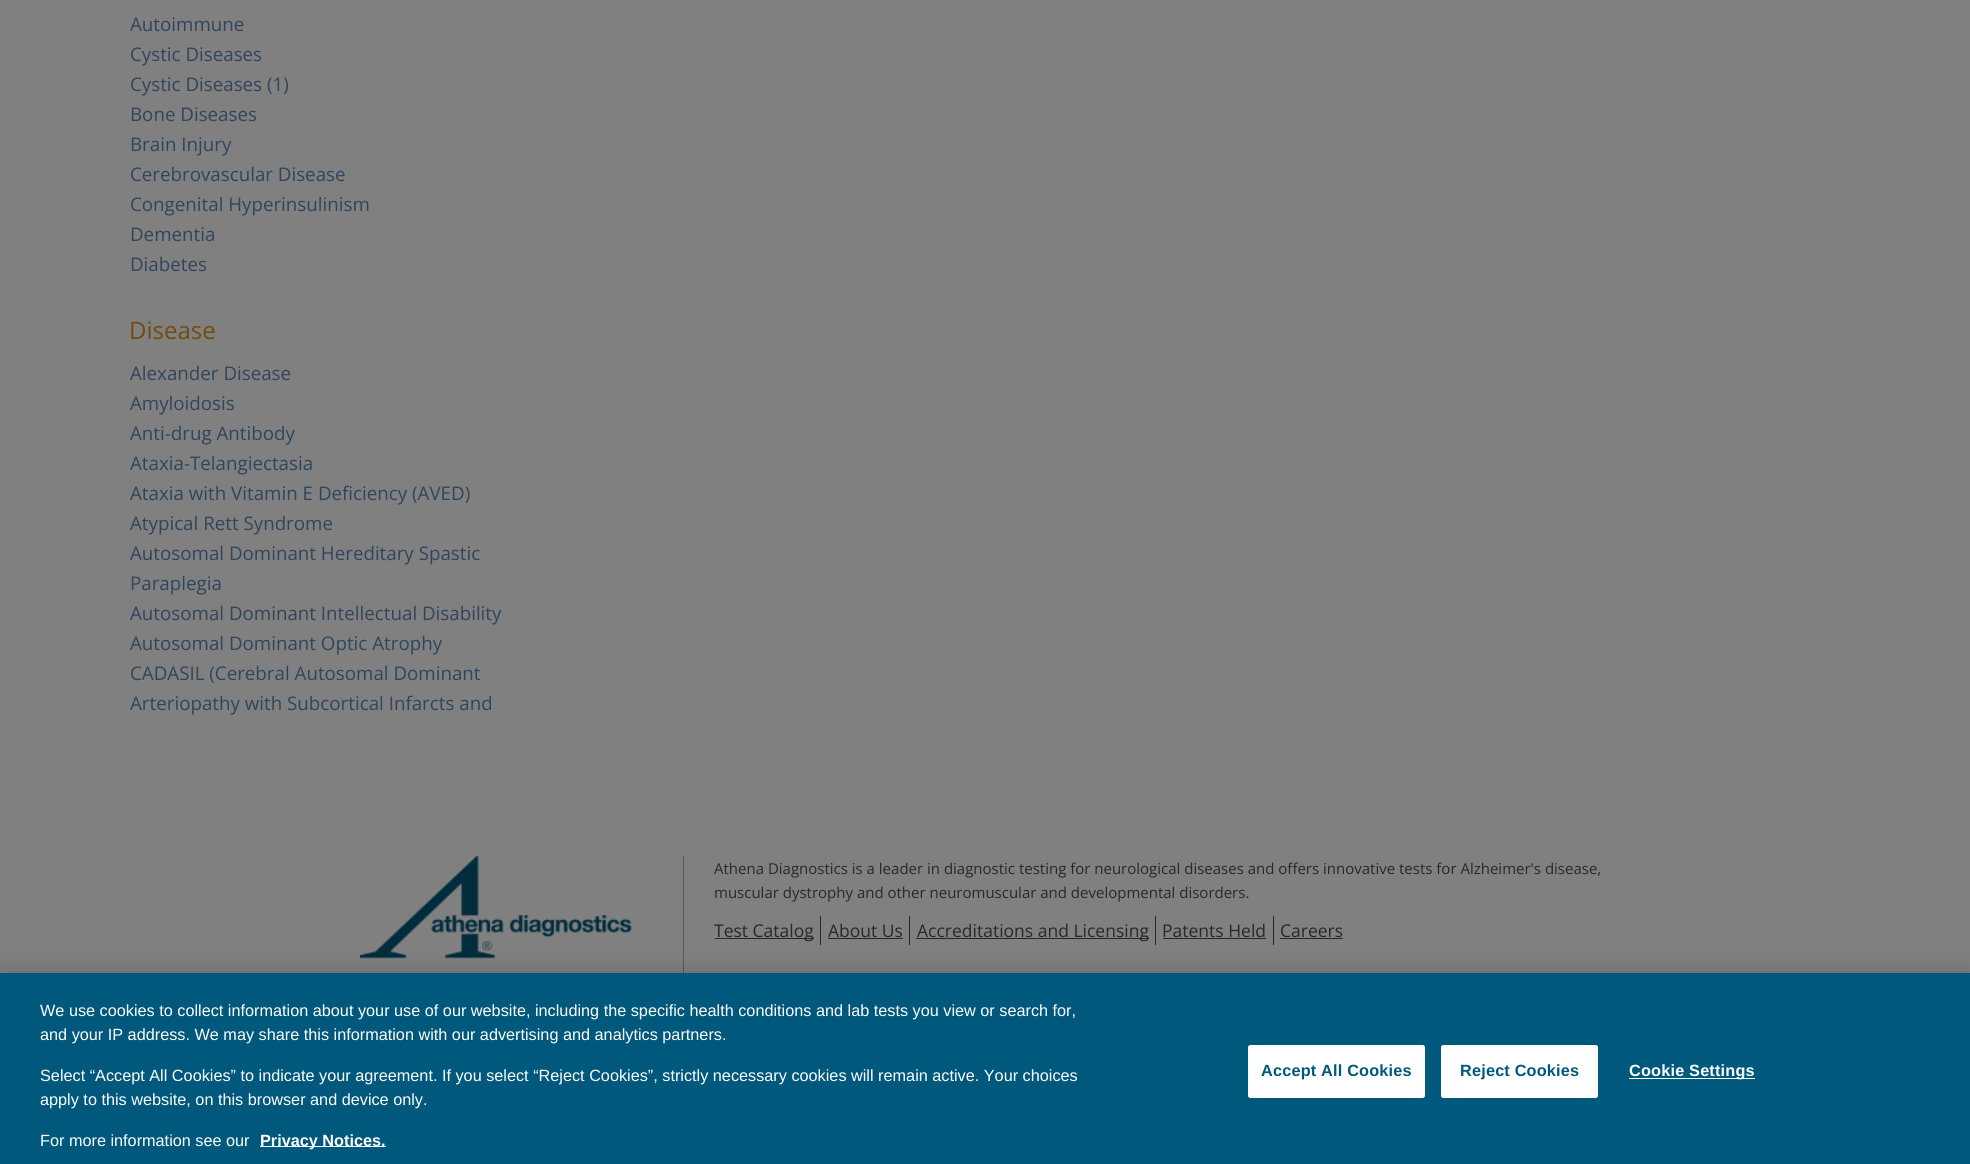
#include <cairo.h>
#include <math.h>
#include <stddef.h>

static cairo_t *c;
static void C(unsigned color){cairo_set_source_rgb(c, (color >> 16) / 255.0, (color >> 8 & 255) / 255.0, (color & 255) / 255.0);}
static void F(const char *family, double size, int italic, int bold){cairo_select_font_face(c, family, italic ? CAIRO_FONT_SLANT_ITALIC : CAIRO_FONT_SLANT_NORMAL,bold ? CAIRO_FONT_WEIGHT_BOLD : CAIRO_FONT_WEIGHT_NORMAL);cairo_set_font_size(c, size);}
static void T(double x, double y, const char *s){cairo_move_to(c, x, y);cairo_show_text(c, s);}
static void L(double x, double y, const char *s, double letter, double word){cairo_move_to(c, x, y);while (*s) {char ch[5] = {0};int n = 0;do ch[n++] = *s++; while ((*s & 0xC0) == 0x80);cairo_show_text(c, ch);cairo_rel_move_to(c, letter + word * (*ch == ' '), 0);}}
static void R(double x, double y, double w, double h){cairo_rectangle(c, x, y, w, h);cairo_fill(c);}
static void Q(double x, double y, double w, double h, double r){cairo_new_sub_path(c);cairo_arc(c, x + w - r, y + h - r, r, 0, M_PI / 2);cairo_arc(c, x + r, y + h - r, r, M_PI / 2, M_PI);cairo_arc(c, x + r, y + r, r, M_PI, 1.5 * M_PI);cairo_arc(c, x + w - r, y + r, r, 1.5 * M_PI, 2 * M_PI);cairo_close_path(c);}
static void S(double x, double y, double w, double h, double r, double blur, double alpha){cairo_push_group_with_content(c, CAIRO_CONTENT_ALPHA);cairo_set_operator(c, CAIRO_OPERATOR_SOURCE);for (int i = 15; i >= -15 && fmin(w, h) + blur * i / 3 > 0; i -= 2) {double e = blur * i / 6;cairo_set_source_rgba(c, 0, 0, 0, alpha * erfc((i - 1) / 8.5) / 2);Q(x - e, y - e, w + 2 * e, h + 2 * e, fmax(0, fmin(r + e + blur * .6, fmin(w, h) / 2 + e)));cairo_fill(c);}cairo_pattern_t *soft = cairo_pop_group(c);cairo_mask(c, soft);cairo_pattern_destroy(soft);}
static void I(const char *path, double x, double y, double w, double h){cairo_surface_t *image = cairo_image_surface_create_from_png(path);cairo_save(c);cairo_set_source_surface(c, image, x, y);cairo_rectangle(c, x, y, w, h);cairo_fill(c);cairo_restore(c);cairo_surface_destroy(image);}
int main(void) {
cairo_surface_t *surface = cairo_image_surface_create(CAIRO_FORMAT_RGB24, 1970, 1164);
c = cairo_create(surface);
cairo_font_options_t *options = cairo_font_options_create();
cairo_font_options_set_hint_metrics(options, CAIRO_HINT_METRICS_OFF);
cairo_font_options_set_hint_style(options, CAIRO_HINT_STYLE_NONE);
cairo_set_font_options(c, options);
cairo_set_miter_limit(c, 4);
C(0x808080);
cairo_paint(c);
F("Open Sans",18.75,0,0);
C(0x2f455b);
T(130,31,"Autoimmune");
T(130,61,"Cystic Diseases");
T(130,91,"Cystic Diseases (1)");
T(130,121,"Bone Diseases");
T(130,151,"Brain Injury");
T(130,181,"Cerebrovascular Disease");
T(130,211,"Congenital Hyperinsulinism");
T(130,241,"Dementia");
T(130,271,"Diabetes");
F("Open Sans",24,0,0);
C(0x714c0a);
T(129,339,"Disease");
F("Open Sans",18.75,0,0);
C(0x2f455b);
T(130,380,"Alexander Disease");
T(130,410,"Amyloidosis");
T(130,440,"Anti-drug Antibody");
T(130,470,"Ataxia-Telangiectasia");
T(130,500,"Ataxia with Vitamin E Deficiency (AVED)");
T(130,530,"Atypical Rett Syndrome");
T(130,560,"Autosomal Dominant Hereditary Spastic");
T(130,590,"Paraplegia");
T(130,620,"Autosomal Dominant Intellectual Disability");
T(130,650,"Autosomal Dominant Optic Atrophy");
T(130,680,"CADASIL (Cerebral Autosomal Dominant");
T(130,710,"Arteriopathy with Subcortical Infarcts and");
I("1.png",360,856,272,103);
C(0x595959);
R(683,856,1,117);
F("Open Sans",15,0,0);
C(0x27282a);
T(714,874,"Athena Diagnostics is a leader in diagnostic testing for neurological diseases and offers innovative tests for Alzheimer's disease,");
T(714,898,"muscular dystrophy and other neuromuscular and developmental disorders.");
R(820,916,1,29);
R(715,938,99,1);
F("Open Sans",17.5,0,0);
T(714,937,"Test Catalog");
R(909,916,1,29);
T(828,937,"About Us");
R(828,938,75,1);
R(1155,916,1,29);
R(916,938,233,1);
T(917,937,"Accreditations and Licensing");
R(1273,916,1,29);
T(1162,937,"Patents Held");
R(1163,938,103,1);
T(1280,937,"Careers");
R(1280,938,63,1);
C(0x000000);
S(0,973,1970,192,0,11,.2);
C(0x00587c);
R(0,973,1970,191);
F("Liberation Sans",16.25,0,0);
C(0xffffff);
T(40,1016,"We use cookies to collect information about your use of our website, including the specific health conditions and lab tests you view or search for,");
T(40,1040,"and your IP address. We may share this information with our advertising and analytics partners.");
T(40,1081,"Select “Accept All Cookies” to indicate your agreement. If you select “Reject Cookies”, strictly necessary cookies will remain active. Your choices");
T(40,1105,"apply to this website, on this browser and device only.");
T(40,1146,"For more information see our");
R(260,1146,126,1);
F("Liberation Sans",16.25,0,1);
T(260,1146,"Privacy Notices.");
Q(1248.5,1045.5,176,52,2);
cairo_fill_preserve(c);
cairo_set_line_width(c,1);
cairo_stroke(c);
C(0x00587c);
L(1261,1076,"Accept All Cookies",.2,0);
C(0xffffff);
Q(1441.5,1045.5,156,52,2);
cairo_fill_preserve(c);
cairo_stroke(c);
C(0x00587c);
L(1460,1076,"Reject Cookies",.2,0);
C(0xffffff);
R(1629,1078,126,1);
L(1629,1076,"Cookie Settings",.2,0);
cairo_surface_write_to_png(surface, "o.png");
cairo_font_options_destroy(options);
cairo_destroy(c);
cairo_surface_destroy(surface);
return 0;
}
